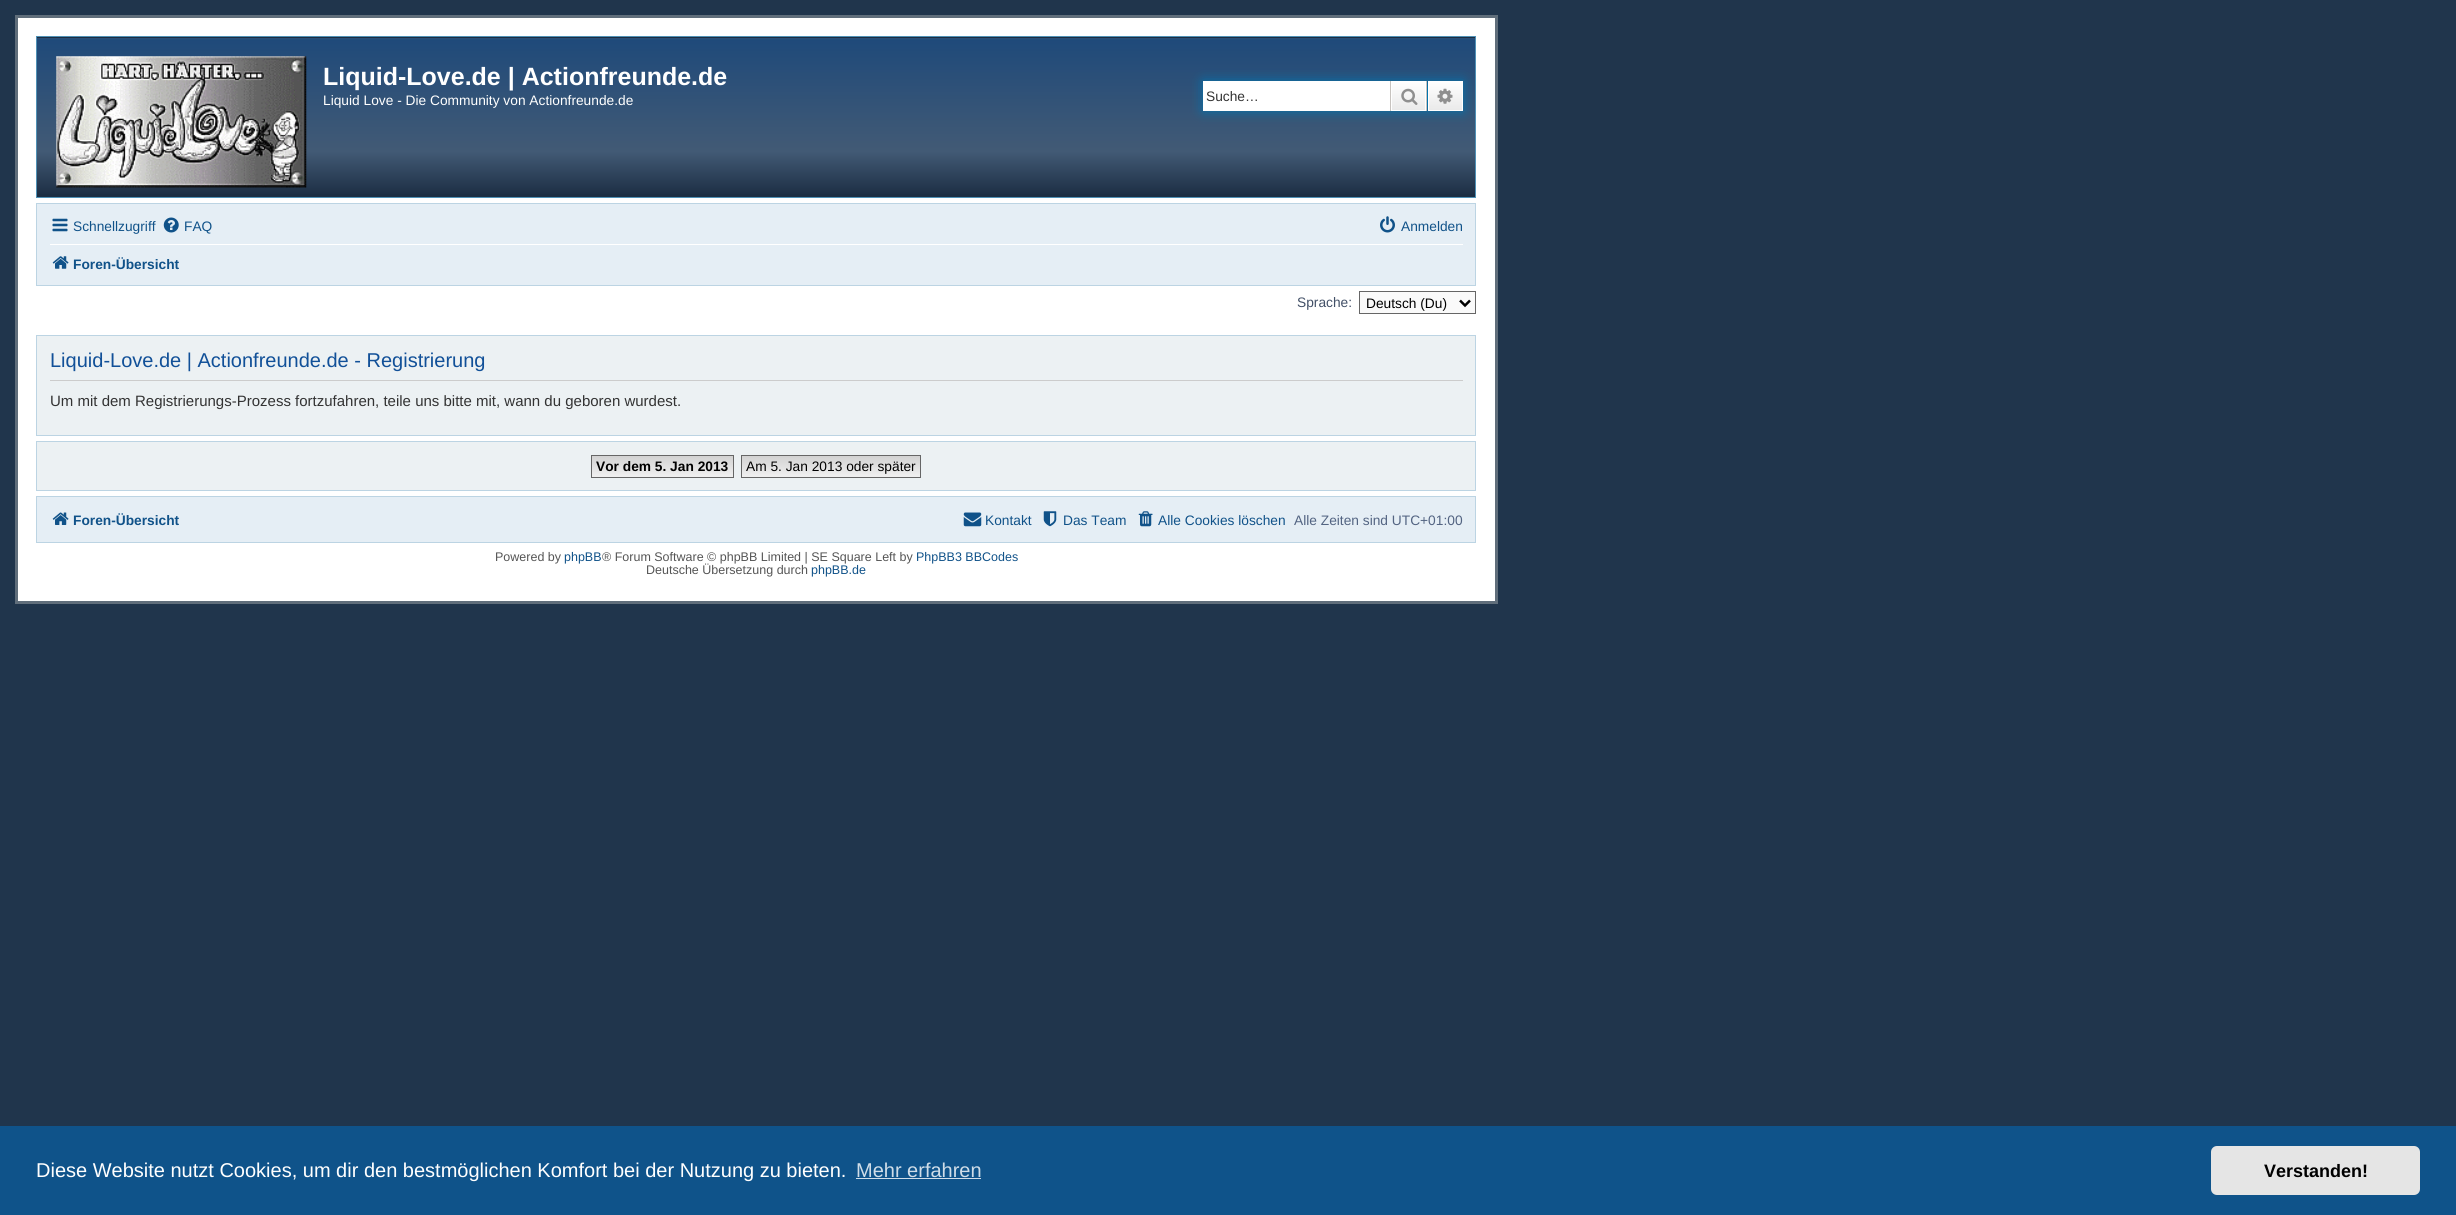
#include <cairo.h>
#include <math.h>
#include <stddef.h>

static cairo_t *c;
static void C(unsigned color){cairo_set_source_rgb(c, (color >> 16) / 255.0, (color >> 8 & 255) / 255.0, (color & 255) / 255.0);}
static void F(const char *family, double size, int italic, int bold){cairo_select_font_face(c, family, italic ? CAIRO_FONT_SLANT_ITALIC : CAIRO_FONT_SLANT_NORMAL,bold ? CAIRO_FONT_WEIGHT_BOLD : CAIRO_FONT_WEIGHT_NORMAL);cairo_set_font_size(c, size);}
static void T(double x, double y, const char *s){cairo_move_to(c, x, y);cairo_show_text(c, s);}
static void R(double x, double y, double w, double h){cairo_rectangle(c, x, y, w, h);cairo_fill(c);}
static void Q(double x, double y, double w, double h, double r){cairo_new_sub_path(c);cairo_arc(c, x + w - r, y + h - r, r, 0, M_PI / 2);cairo_arc(c, x + r, y + h - r, r, M_PI / 2, M_PI);cairo_arc(c, x + r, y + r, r, M_PI, 1.5 * M_PI);cairo_arc(c, x + w - r, y + r, r, 1.5 * M_PI, 2 * M_PI);cairo_close_path(c);}
static void S(double x, double y, double w, double h, double r, double blur, double alpha){cairo_push_group_with_content(c, CAIRO_CONTENT_ALPHA);cairo_set_operator(c, CAIRO_OPERATOR_SOURCE);for (int i = 15; i >= -15 && fmin(w, h) + blur * i / 3 > 0; i -= 2) {double e = blur * i / 6;cairo_set_source_rgba(c, 0, 0, 0, alpha * erfc((i - 1) / 8.5) / 2);Q(x - e, y - e, w + 2 * e, h + 2 * e, fmax(0, fmin(r + e + blur * .6, fmin(w, h) / 2 + e)));cairo_fill(c);}cairo_pattern_t *soft = cairo_pop_group(c);cairo_mask(c, soft);cairo_pattern_destroy(soft);}
static void I(const char *path, double x, double y, double w, double h){cairo_surface_t *image = cairo_image_surface_create_from_png(path);cairo_save(c);cairo_set_source_surface(c, image, x, y);cairo_rectangle(c, x, y, w, h);cairo_fill(c);cairo_restore(c);cairo_surface_destroy(image);}
int main(void) {
cairo_surface_t *surface = cairo_image_surface_create(CAIRO_FORMAT_RGB24, 2456, 1215);
c = cairo_create(surface);
cairo_font_options_t *options = cairo_font_options_create();
cairo_font_options_set_hint_metrics(options, CAIRO_HINT_METRICS_OFF);
cairo_font_options_set_hint_style(options, CAIRO_HINT_STYLE_NONE);
cairo_set_font_options(c, options);
cairo_set_miter_limit(c, 4);
cairo_pattern_t *gradient;
C(0x20354c);
cairo_paint(c);
C(0xffffff);
cairo_rectangle(c,16.5,16.5,1480,586);
cairo_fill_preserve(c);
C(0x606e7b);
cairo_set_line_width(c,3);
cairo_stroke(c);
C(0x1c2e43);
R(37,37,1438,160);
gradient = cairo_pattern_create_linear(756,37,756,196);
cairo_pattern_add_color_stop_rgba(gradient,0,0.192,0.322,0.459,1);
cairo_pattern_add_color_stop_rgba(gradient,.02,0.122,0.29,0.478,1);
cairo_pattern_add_color_stop_rgba(gradient,.72,0.259,0.353,0.459,1);
cairo_pattern_add_color_stop_rgba(gradient,1,0.11,0.18,0.263,1);
cairo_set_source(c,gradient);
cairo_pattern_destroy(gradient);
R(37,38,1438,156);
cairo_rectangle(c,36.5,36.5,1439,161);
C(0x4f91b6);
cairo_set_line_width(c,1);
cairo_stroke(c);
I("1.png",56,56,251,132);
F("Liberation Sans",25,0,1);
C(0xffffff);
T(323,85,"Liquid-Love.de | Actionfreunde.de");
F("Liberation Sans",13.75,0,0);
T(323,105,"Liquid Love - Die Community von Actionfreunde.de");
C(0x0075b0);
S(1203,81,260,30,0,6,1);
C(0xffffff);
R(1203,81,187,30);
C(0x333333);
T(1206,101,"Suche…");
gradient = cairo_pattern_create_linear(1409,81,1409,111);
cairo_pattern_add_color_stop_rgba(gradient,0,1,1,1,1);
cairo_pattern_add_color_stop_rgba(gradient,1,0.914,0.914,0.914,1);
cairo_set_source(c,gradient);
cairo_pattern_destroy(gradient);
R(1392,82,33,28);
cairo_rectangle(c,1391.5,81.5,34,29);
C(0xffffff);
cairo_stroke(c);
C(0xc7c3bf);
R(1426,81,1,30);
R(1390,81,1,30);
I("2.png",1401,88,17,17);
gradient = cairo_pattern_create_linear(1445,81,1445,111);
cairo_pattern_add_color_stop_rgba(gradient,0,1,1,1,1);
cairo_pattern_add_color_stop_rgba(gradient,1,0.914,0.914,0.914,1);
cairo_set_source(c,gradient);
cairo_pattern_destroy(gradient);
R(1429,82,33,28);
cairo_rectangle(c,1428.5,81.5,34,29);
C(0xffffff);
cairo_stroke(c);
I("3.png",1437,88,16,16);
C(0xe5eef5);
cairo_rectangle(c,36.5,203.5,1439,82);
cairo_fill_preserve(c);
C(0xbcd4e3);
cairo_stroke(c);
I("4.png",52,218,16,14);
C(0x105289);
T(73,231,"Schnellzugriff");
I("5.png",163,217,16,16);
T(184,231,"FAQ");
I("6.png",1380,216,15,17);
T(1401,231,"Anmelden");
C(0xffffff);
R(50,244,1413,1);
I("7.png",52,256,17,13);
F("Liberation Sans",13.75,0,1);
C(0x105289);
T(73,269,"Foren-Übersicht");
F("Liberation Sans",13.75,0,0);
C(0x425067);
T(1297,307,"Sprache:");
C(0xfafafa);
cairo_rectangle(c,1359.5,291.5,116,22);
cairo_fill_preserve(c);
C(0x666666);
cairo_stroke(c);
cairo_new_path(c);
cairo_move_to(c,1460,300.5);
cairo_line_to(c,1465,305.5);
cairo_line_to(c,1470,300.5);
C(0x000000);
cairo_set_line_width(c,2.5);
cairo_stroke(c);
T(1366,308,"Deutsch (Du)");
C(0xecf1f3);
cairo_rectangle(c,36.5,335.5,1439,100);
cairo_fill_preserve(c);
C(0xbcd4e3);
cairo_set_line_width(c,1);
cairo_stroke(c);
C(0xcccccc);
R(50,380,1413,1);
F("Liberation Sans",20,0,0);
C(0x115098);
T(50,367,"Liquid-Love.de | Actionfreunde.de - Registrierung");
F("Liberation Sans",15,0,0);
C(0x333333);
T(50,406,"Um mit dem Registrierungs-Prozess fortzufahren, teile uns bitte mit, wann du geboren wurdest.");
C(0xecf1f3);
cairo_rectangle(c,36.5,441.5,1439,49);
cairo_fill_preserve(c);
C(0xbcd4e3);
cairo_stroke(c);
C(0xefefef);
R(592,476,141,1);
gradient = cairo_pattern_create_linear(663,456,663,476);
cairo_pattern_add_color_stop_rgba(gradient,0,0.824,0.824,0.824,1);
cairo_pattern_add_color_stop_rgba(gradient,1,0.937,0.937,0.937,1);
cairo_set_source(c,gradient);
cairo_pattern_destroy(gradient);
R(592,456,141,20);
cairo_rectangle(c,591.5,455.5,142,22);
C(0x666666);
cairo_stroke(c);
F("Liberation Sans",13.75,0,1);
C(0x000000);
T(596,471,"Vor dem 5. Jan 2013");
C(0xefefef);
R(742,476,178,1);
gradient = cairo_pattern_create_linear(831,456,831,476);
cairo_pattern_add_color_stop_rgba(gradient,0,0.824,0.824,0.824,1);
cairo_pattern_add_color_stop_rgba(gradient,1,0.937,0.937,0.937,1);
cairo_set_source(c,gradient);
cairo_pattern_destroy(gradient);
R(742,456,178,20);
cairo_rectangle(c,741.5,455.5,179,22);
C(0x666666);
cairo_stroke(c);
F("Liberation Sans",13.75,0,0);
C(0x000000);
T(746,471,"Am 5. Jan 2013 oder später");
C(0xe5eef5);
cairo_rectangle(c,36.5,496.5,1439,46);
cairo_fill_preserve(c);
C(0xbcd4e3);
cairo_stroke(c);
I("8.png",52,512,17,13);
F("Liberation Sans",13.75,0,1);
C(0x105289);
T(73,525,"Foren-Übersicht");
I("9.png",963,512,19,15);
F("Liberation Sans",13.75,0,0);
T(985,525,"Kontakt");
I("10.png",1043,511,14,16);
T(1063,525,"Das Team");
I("11.png",1138,511,15,16);
T(1158,525,"Alle Cookies löschen");
C(0x536482);
T(1294,525,"Alle Zeiten sind UTC+01:00");
F("Liberation Sans",12.5,0,0);
C(0x555555);
T(495,561,"Powered by");
C(0x105289);
T(564,561,"phpBB");
C(0x555555);
T(602,561,"® Forum Software © phpBB Limited | SE Square Left by");
C(0x105289);
T(916,561,"PhpBB3 BBCodes");
C(0x555555);
T(646,574,"Deutsche Übersetzung durch");
C(0x105289);
T(811,574,"phpBB.de");
C(0x0f538a);
R(0,1126,2456,89);
F("Liberation Sans",20,0,0);
C(0xffffff);
T(36,1177,"Diese Website nutzt Cookies, um dir den bestmöglichen Komfort bei der Nutzung zu bieten.");
C(0xcfdde8);
T(856,1177,"Mehr erfahren");
R(856,1178,125,1);
C(0xe5e5e5);
Q(2211,1146,209,49,6);
cairo_fill(c);
F("Liberation Sans",18,0,1);
C(0x000000);
T(2264,1177,"Verstanden!");
cairo_surface_write_to_png(surface, "o.png");
cairo_font_options_destroy(options);
cairo_destroy(c);
cairo_surface_destroy(surface);
return 0;
}
